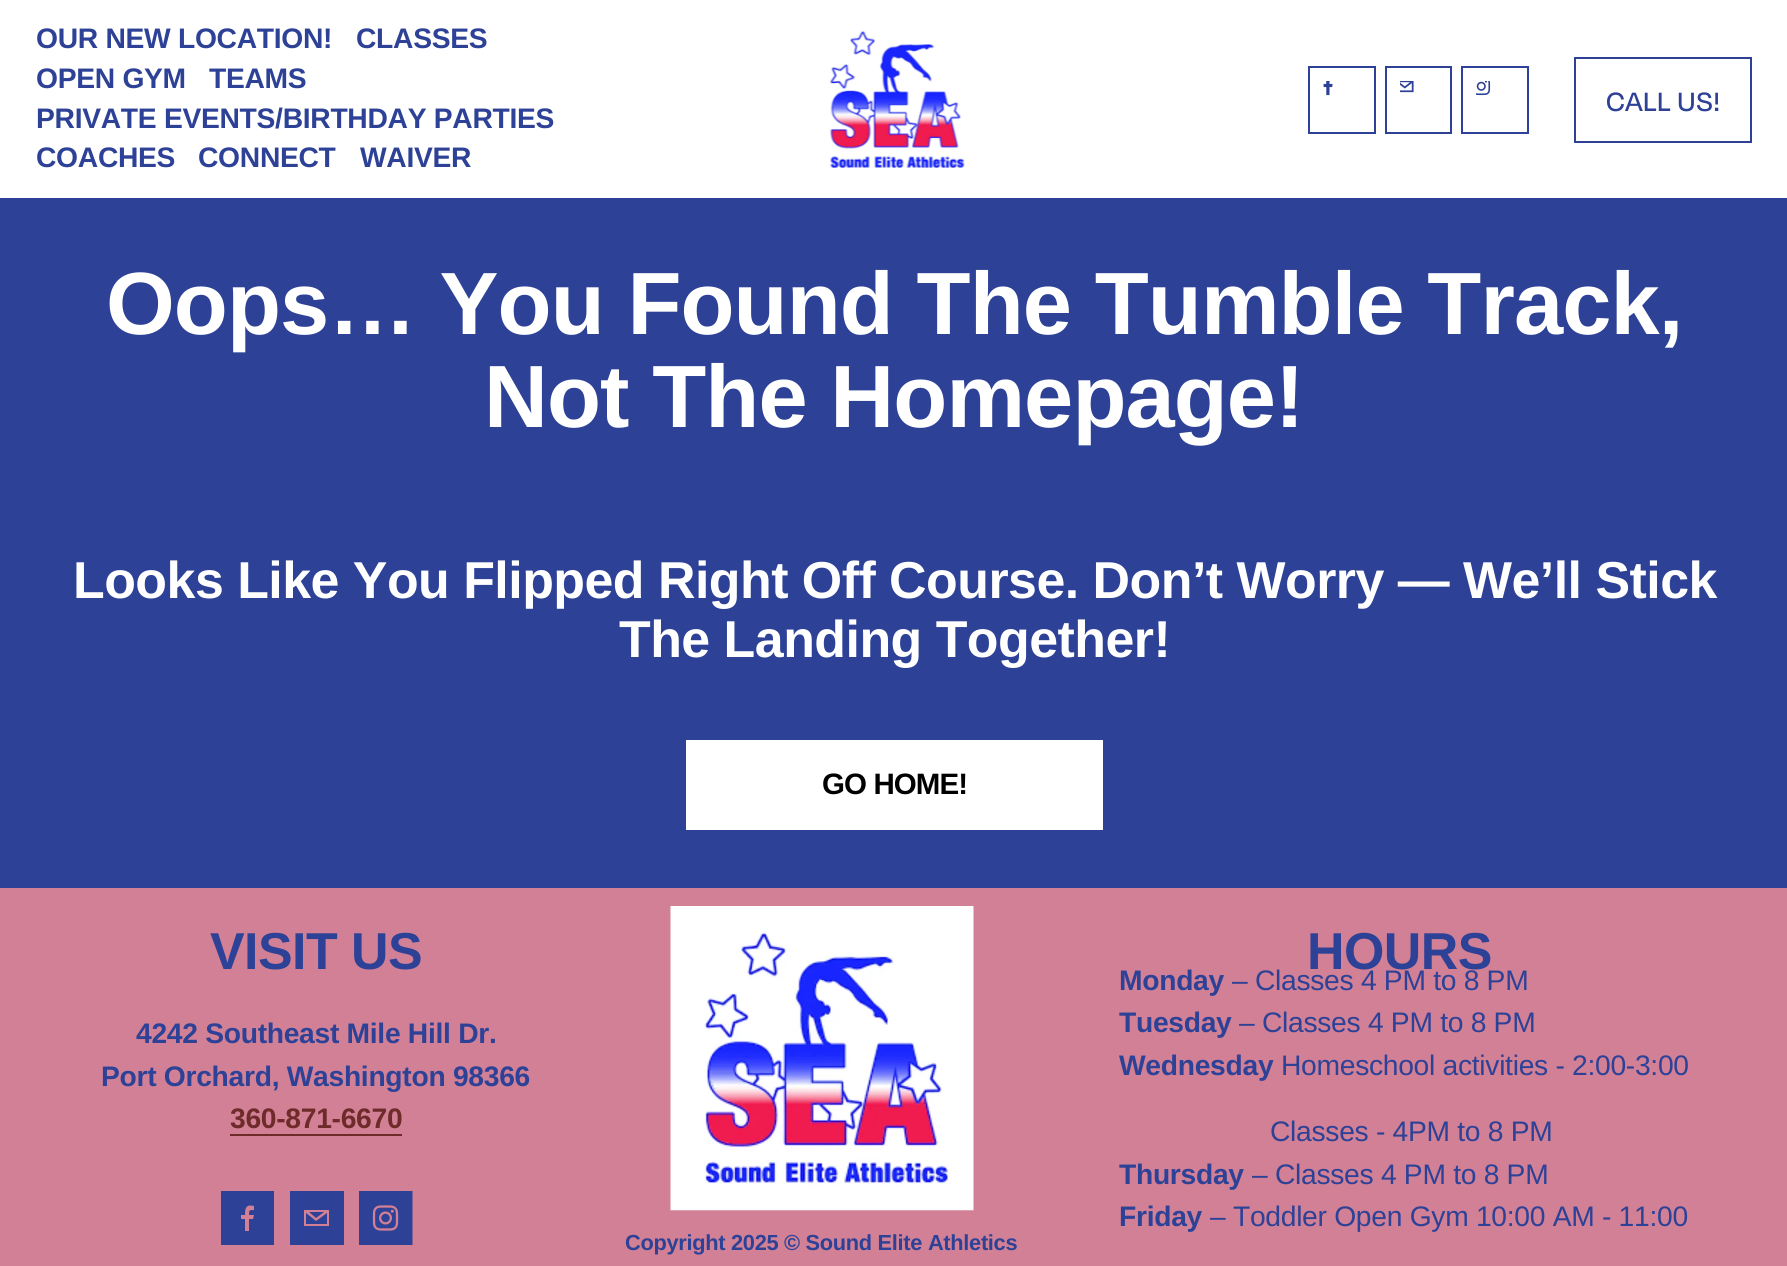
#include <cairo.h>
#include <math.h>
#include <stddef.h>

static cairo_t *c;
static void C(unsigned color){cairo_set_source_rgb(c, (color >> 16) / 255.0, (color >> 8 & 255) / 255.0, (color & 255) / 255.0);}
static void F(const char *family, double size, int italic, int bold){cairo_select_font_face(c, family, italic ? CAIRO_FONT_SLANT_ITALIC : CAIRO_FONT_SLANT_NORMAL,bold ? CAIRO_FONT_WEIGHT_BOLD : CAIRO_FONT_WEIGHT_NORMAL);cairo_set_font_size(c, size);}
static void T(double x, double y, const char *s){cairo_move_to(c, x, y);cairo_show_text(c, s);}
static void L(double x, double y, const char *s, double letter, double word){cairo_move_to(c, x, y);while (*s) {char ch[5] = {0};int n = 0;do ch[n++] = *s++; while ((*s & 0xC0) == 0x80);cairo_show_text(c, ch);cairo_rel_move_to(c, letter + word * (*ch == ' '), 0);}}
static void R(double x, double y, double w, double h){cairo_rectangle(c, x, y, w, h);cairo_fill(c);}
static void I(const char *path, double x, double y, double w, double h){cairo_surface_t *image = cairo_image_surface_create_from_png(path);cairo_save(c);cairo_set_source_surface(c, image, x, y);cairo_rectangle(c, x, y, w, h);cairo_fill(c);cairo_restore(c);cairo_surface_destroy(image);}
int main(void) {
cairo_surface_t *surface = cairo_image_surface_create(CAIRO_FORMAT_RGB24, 1787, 1266);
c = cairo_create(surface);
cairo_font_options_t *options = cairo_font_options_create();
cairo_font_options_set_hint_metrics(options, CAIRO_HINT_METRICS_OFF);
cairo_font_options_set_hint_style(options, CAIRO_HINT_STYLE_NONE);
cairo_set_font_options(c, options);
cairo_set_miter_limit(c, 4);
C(0xd18095);
cairo_paint(c);
C(0xffffff);
R(0,0,1787,198);
F("Liberation Sans",28.25,0,1);
C(0x2d4197);
L(36,48,"OUR NEW LOCATION!",-.3,0);
L(356,48,"CLASSES",-.3,0);
L(36,88,"OPEN GYM",-.3,0);
L(209,88,"TEAMS",-.3,0);
L(36,128,"PRIVATE EVENTS/BIRTHDAY PARTIES",-.3,0);
L(36,167,"COACHES",-.3,0);
L(198,167,"CONNECT",-.3,0);
L(360,167,"WAIVER",-.3,0);
I("1.png",829,30,136,139);
cairo_rectangle(c,1309,67,66,66);
cairo_stroke(c);
I("2.png",1323,81,10,15);
cairo_rectangle(c,1386,67,65,66);
cairo_stroke(c);
I("3.png",1400,81,14,12);
cairo_rectangle(c,1462,67,66,66);
cairo_stroke(c);
I("4.png",1476,81,15,15);
cairo_rectangle(c,1575,58,176,84);
cairo_stroke(c);
F("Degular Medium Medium",30.5,0,0);
T(1606,111,"CALL US!");
R(0,198,1787,690);
F("Liberation Sans",88.4,0,1);
C(0xffffff);
L(106,334,"Oops… You Found The Tumble Track,",-.9,0);
L(484,427,"Not The Homepage!",-.9,0);
F("Liberation Sans",51.9,0,1);
L(73,598,"Looks Like You Flipped Right Off Course. Don’t Worry — We’ll Stick",-.52,0);
L(619,657,"The Landing Together!",-.52,0);
R(686,740,417,90);
F("Liberation Sans",29.5,0,1);
C(0x000000);
L(822,794,"GO HOME!",-.9,0);
F("Liberation Sans",51.9,0,1);
C(0x2d4197);
L(210,969,"VISIT US",-.52,0);
I("5.png",670,906,304,305);
L(1307,969,"HOURS",-.52,0);
F("Liberation Sans",28.25,0,1);
L(136,1043,"4242 Southeast Mile Hill Dr.",-.3,0);
L(101,1086,"Port Orchard, Washington 98366",-.3,0);
C(0x6e2b2a);
L(230,1128,"360-871-6670",-.3,0);
R(230,1134,172,2);
C(0x2d4197);
L(1119,990,"Monday",-.3,0);
F("Liberation Sans",28.25,0,0);
L(1232,990,"– Classes 4 PM to 8 PM",-.3,0);
F("Liberation Sans",28.25,0,1);
L(1119,1032,"Tuesday",-.3,0);
F("Liberation Sans",28.25,0,0);
L(1239,1032,"– Classes 4 PM to 8 PM",-.3,0);
F("Liberation Sans",28.25,0,1);
L(1119,1075,"Wednesday",-.3,0);
F("Liberation Sans",28.25,0,0);
L(1281,1075,"Homeschool activities - 2:00-3:00",-.3,0);
L(1270,1141,"Classes - 4PM to 8 PM",-.3,0);
F("Liberation Sans",28.25,0,1);
L(1119,1184,"Thursday",-.3,0);
F("Liberation Sans",28.25,0,0);
L(1252,1184,"– Classes 4 PM to 8 PM",-.3,0);
F("Liberation Sans",28.25,0,1);
L(1119,1226,"Friday",-.3,0);
F("Liberation Sans",28.25,0,0);
L(1210,1226,"– Toddler Open Gym 10:00 AM - 11:00",-.3,0);
cairo_save(c);
cairo_rectangle(c,221,1191,54,54);
cairo_clip(c);
cairo_new_path(c);
cairo_move_to(c,220,1191);
cairo_line_to(c,220,1245);
cairo_line_to(c,274,1245);
cairo_line_to(c,274,1191);
cairo_close_path(c);
cairo_move_to(c,254,1210);
cairo_curve_to(c,249,1210,249,1210,249,1215);
cairo_line_to(c,254,1215);
cairo_line_to(c,253,1219);
cairo_line_to(c,249,1219);
cairo_line_to(c,249,1231);
cairo_line_to(c,245,1231);
cairo_line_to(c,245,1219);
cairo_line_to(c,241,1219);
cairo_line_to(c,241,1215);
cairo_line_to(c,245,1215);
cairo_curve_to(c,245,1208,246,1204,254,1206);
cairo_close_path(c);
cairo_fill(c);
cairo_restore(c);
cairo_new_path(c);
cairo_move_to(c,324,1212);
cairo_line_to(c,309,1212);
cairo_line_to(c,316,1218);
cairo_close_path(c);
cairo_move_to(c,327,1213);
cairo_line_to(c,316,1221);
cairo_line_to(c,306,1213);
cairo_line_to(c,306,1224);
cairo_line_to(c,327,1224);
cairo_close_path(c);
cairo_move_to(c,290,1191);
cairo_line_to(c,290,1245);
cairo_line_to(c,344,1245);
cairo_line_to(c,344,1191);
cairo_close_path(c);
cairo_move_to(c,329,1226);
cairo_line_to(c,304,1226);
cairo_line_to(c,304,1210);
cairo_line_to(c,329,1210);
cairo_close_path(c);
cairo_fill(c);
I("6.png",359,1191,54,54);
F("Liberation Sans",21.8,0,1);
L(625,1250,"Copyright 2025 © Sound Elite Athletics",-.3,0);
cairo_surface_write_to_png(surface, "o.png");
cairo_font_options_destroy(options);
cairo_destroy(c);
cairo_surface_destroy(surface);
return 0;
}
